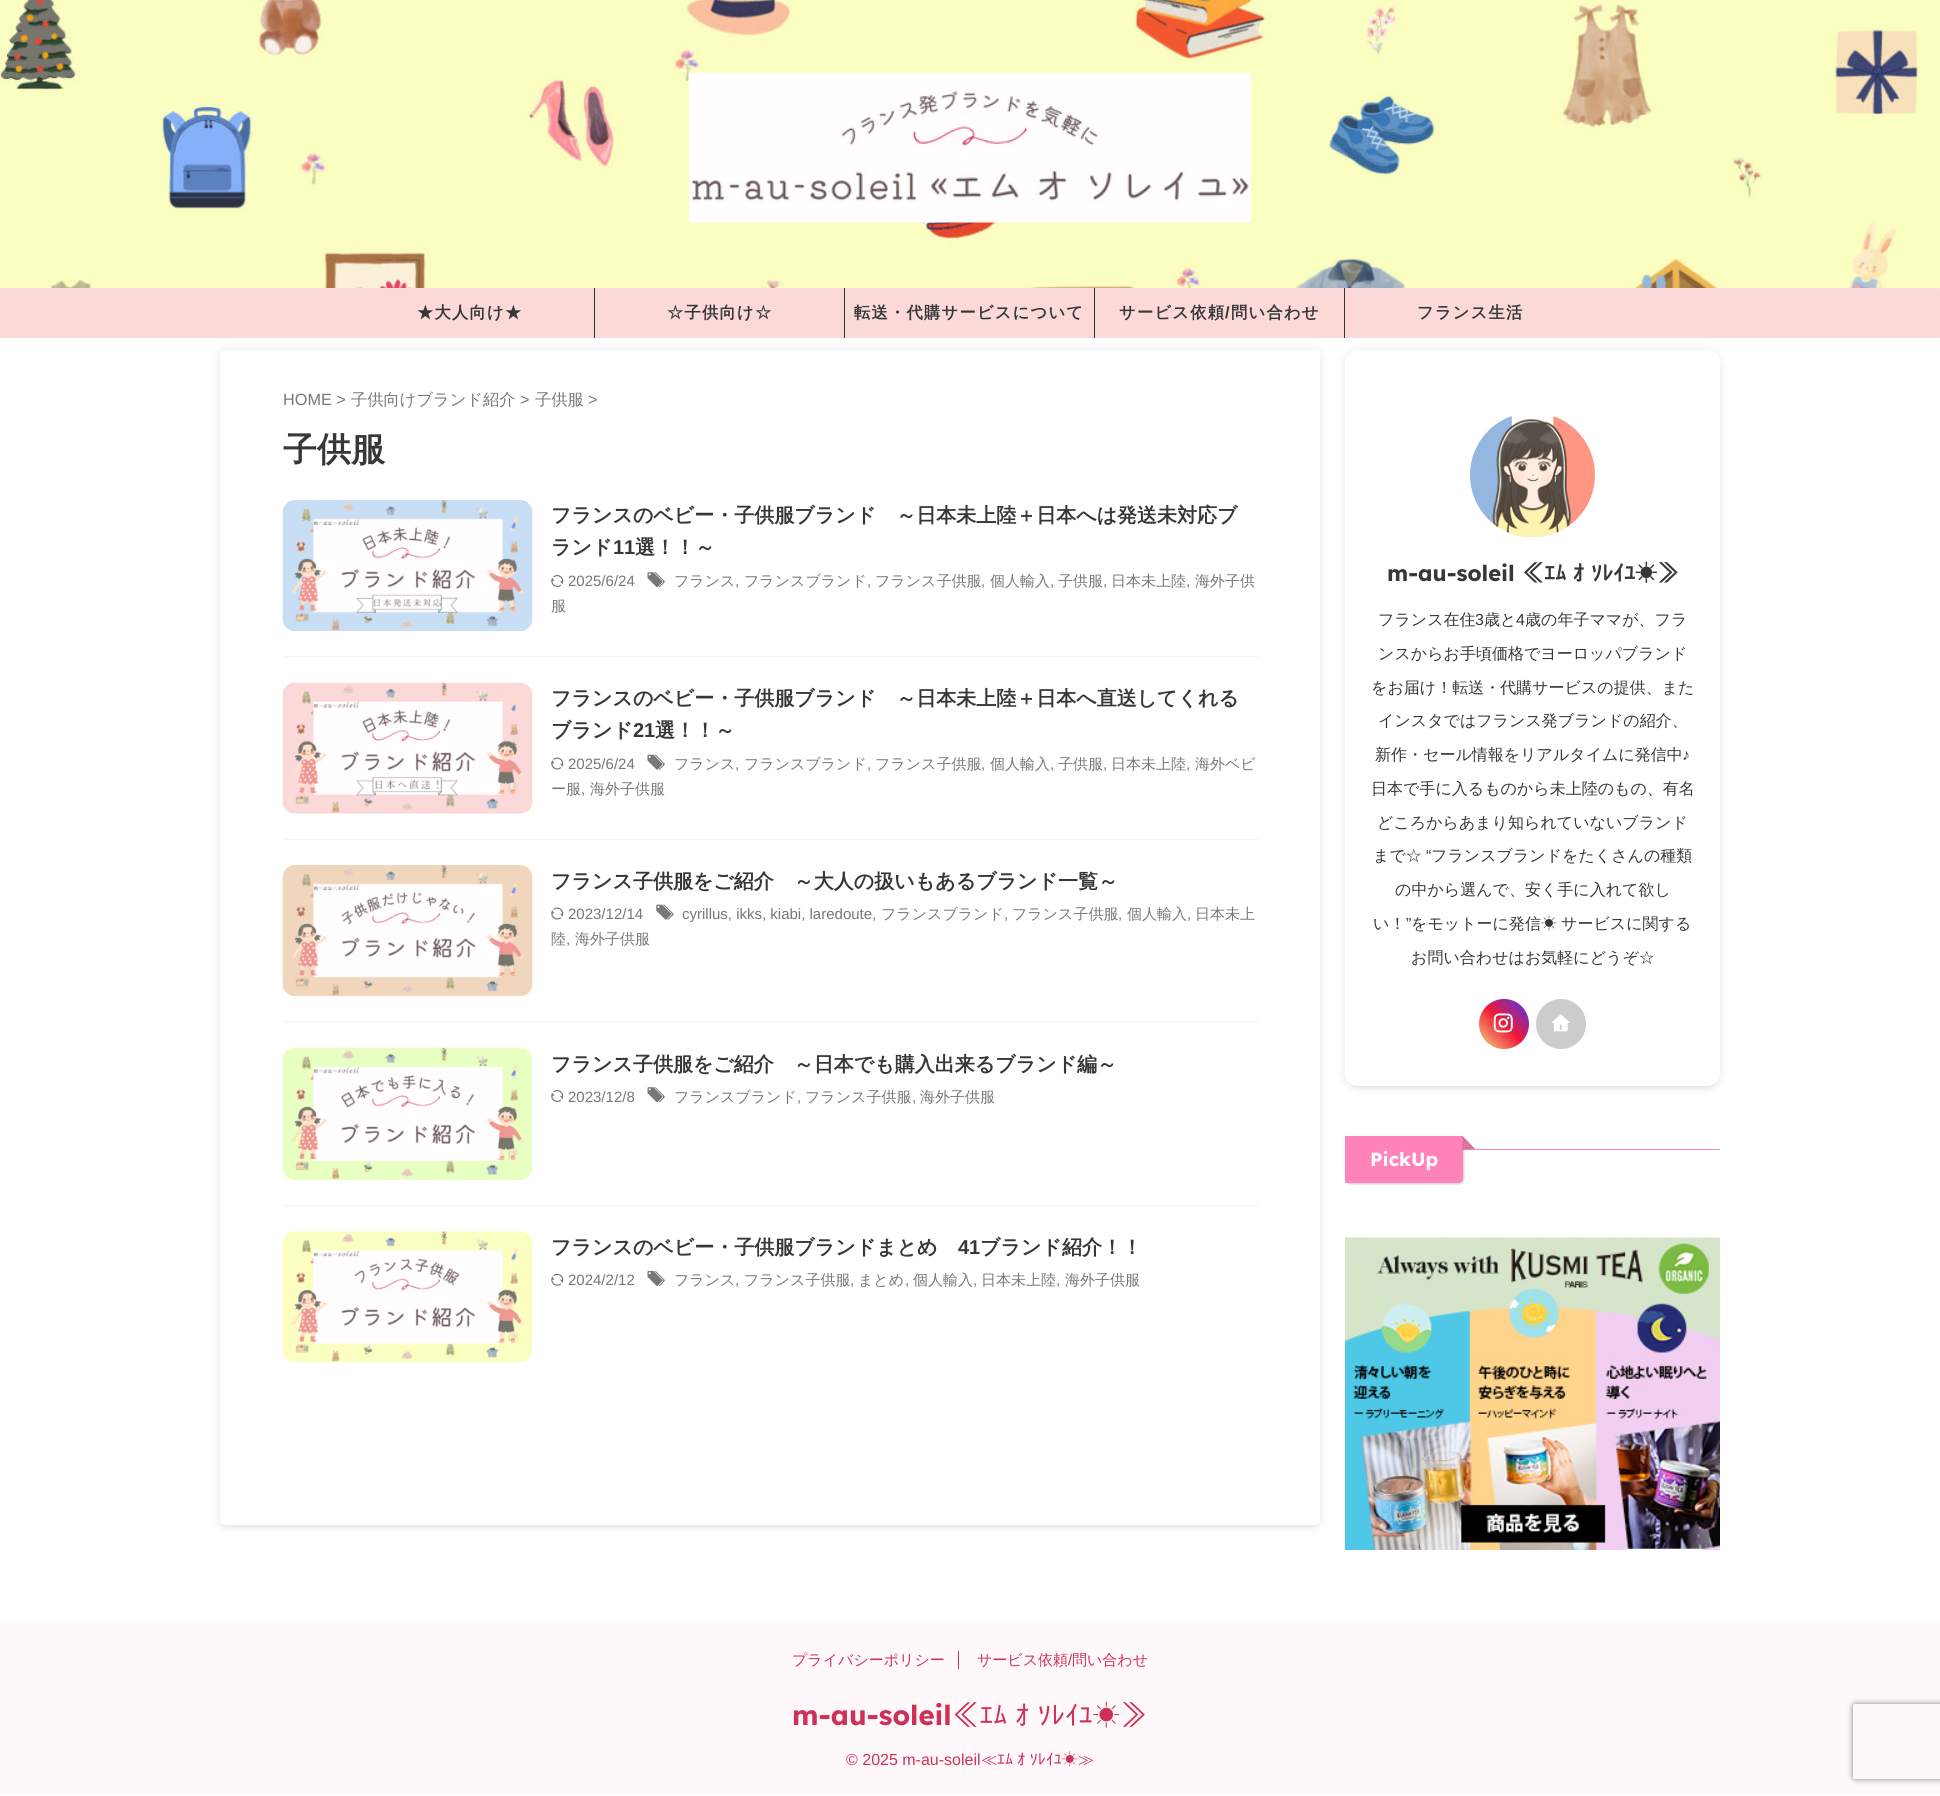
#include <cairo.h>
#include <math.h>
#include <stddef.h>

static cairo_t *c;
static void C(unsigned color){cairo_set_source_rgb(c, (color >> 16) / 255.0, (color >> 8 & 255) / 255.0, (color & 255) / 255.0);}
static void F(const char *family, double size, int italic, int bold){cairo_select_font_face(c, family, italic ? CAIRO_FONT_SLANT_ITALIC : CAIRO_FONT_SLANT_NORMAL,bold ? CAIRO_FONT_WEIGHT_BOLD : CAIRO_FONT_WEIGHT_NORMAL);cairo_set_font_size(c, size);}
static void T(double x, double y, const char *s){cairo_move_to(c, x, y);cairo_show_text(c, s);}
static void L(double x, double y, const char *s, double letter, double word){cairo_move_to(c, x, y);while (*s) {char ch[5] = {0};int n = 0;do ch[n++] = *s++; while ((*s & 0xC0) == 0x80);cairo_show_text(c, ch);cairo_rel_move_to(c, letter + word * (*ch == ' '), 0);}}
static void R(double x, double y, double w, double h){cairo_rectangle(c, x, y, w, h);cairo_fill(c);}
static void Q(double x, double y, double w, double h, double r){cairo_new_sub_path(c);cairo_arc(c, x + w - r, y + h - r, r, 0, M_PI / 2);cairo_arc(c, x + r, y + h - r, r, M_PI / 2, M_PI);cairo_arc(c, x + r, y + r, r, M_PI, 1.5 * M_PI);cairo_arc(c, x + w - r, y + r, r, 1.5 * M_PI, 2 * M_PI);cairo_close_path(c);}
static void S(double x, double y, double w, double h, double r, double blur, double alpha){cairo_push_group_with_content(c, CAIRO_CONTENT_ALPHA);cairo_set_operator(c, CAIRO_OPERATOR_SOURCE);for (int i = 15; i >= -15 && fmin(w, h) + blur * i / 3 > 0; i -= 2) {double e = blur * i / 6;cairo_set_source_rgba(c, 0, 0, 0, alpha * erfc((i - 1) / 8.5) / 2);Q(x - e, y - e, w + 2 * e, h + 2 * e, fmax(0, fmin(r + e + blur * .6, fmin(w, h) / 2 + e)));cairo_fill(c);}cairo_pattern_t *soft = cairo_pop_group(c);cairo_mask(c, soft);cairo_pattern_destroy(soft);}
static void I(const char *path, double x, double y, double w, double h){cairo_surface_t *image = cairo_image_surface_create_from_png(path);cairo_save(c);cairo_set_source_surface(c, image, x, y);cairo_rectangle(c, x, y, w, h);cairo_fill(c);cairo_restore(c);cairo_surface_destroy(image);}
int main(void) {
cairo_surface_t *surface = cairo_image_surface_create(CAIRO_FORMAT_RGB24, 1940, 1796);
c = cairo_create(surface);
cairo_font_options_t *options = cairo_font_options_create();
cairo_font_options_set_hint_metrics(options, CAIRO_HINT_METRICS_OFF);
cairo_font_options_set_hint_style(options, CAIRO_HINT_STYLE_NONE);
cairo_set_font_options(c, options);
cairo_set_miter_limit(c, 4);
cairo_pattern_t *gradient;
C(0xffffff);
cairo_paint(c);
I("1.png",0,0,1940,338);
I("2.png",688,72,564,151);
C(0xfbd9d9);
Q(0,288,1940,50,1);
cairo_fill(c);
C(0x333333);
R(594,288,1,50);
F("WenQuanYi Zen Hei",16.25,0,1);
C(0x373737);
L(417,318,"★大人向け★",1.25,0);
C(0x333333);
R(844,288,1,50);
C(0x373737);
L(667,318,"☆子供向け☆",1.25,0);
C(0x333333);
R(1094,288,1,50);
C(0x373737);
L(854,318,"転送・代購サービスについて",1.25,0);
C(0x333333);
R(1344,288,1,50);
C(0x373737);
L(1119,318,"サービス依頼",1.25,0);
F("Liberation Sans",16.25,0,1);
L(1225,318,"/",1.25,0);
F("WenQuanYi Zen Hei",16.25,0,1);
L(1231,318,"問い合わせ",1.25,0);
L(1417,318,"フランス生活",1.25,0);
C(0x000000);
S(225,360,1090,1165,0,2.5,.1);
S(220,351,1100,1175,5,5,.1);
C(0xffffff);
Q(220,350,1100,1175,5);
cairo_fill(c);
F("Liberation Sans",16.25,0,0);
C(0x777777);
T(283,405,"HOME >");
F("WenQuanYi Zen Hei Medium",16.25,0,0);
T(351,405,"子供向けブランド紹介");
F("Liberation Sans",16.25,0,0);
T(520,405,">");
F("WenQuanYi Zen Hei Medium",16.25,0,0);
T(535,405,"子供服");
F("Liberation Sans",16.25,0,0);
T(588,405,">");
F("WenQuanYi Zen Hei",34,0,1);
C(0x373737);
T(283,461,"子供服");
C(0xf3f3f3);
R(283,656,975,1);
I("3.png",282,500,251,131);
F("WenQuanYi Zen Hei",20,0,1);
C(0x373737);
T(551,522,"フランスのベビー・子供服ブランド　～日本未上陸＋日本へは発送未対応ブ");
T(551,554,"ランド");
F("Liberation Sans",20,0,1);
T(613,554,"11");
F("WenQuanYi Zen Hei",20,0,1);
T(635,554,"選！！～");
I("4.png",551,575,13,12);
F("Liberation Sans",15,0,0);
C(0x777777);
T(568,586,"2025/6/24");
I("5.png",647,572,18,16);
F("WenQuanYi Zen Hei Medium",15,0,0);
T(674,586,"フランス");
F("Liberation Sans",15,0,0);
T(735,586,",");
F("WenQuanYi Zen Hei Medium",15,0,0);
T(744,586,"フランスブランド");
F("Liberation Sans",15,0,0);
T(867,586,",");
F("WenQuanYi Zen Hei Medium",15,0,0);
T(875,586,"フランス子供服");
F("Liberation Sans",15,0,0);
T(981,586,",");
F("WenQuanYi Zen Hei Medium",15,0,0);
T(990,586,"個人輸入");
F("Liberation Sans",15,0,0);
T(1050,586,",");
F("WenQuanYi Zen Hei Medium",15,0,0);
T(1058,586,"子供服");
F("Liberation Sans",15,0,0);
T(1103,586,",");
F("WenQuanYi Zen Hei Medium",15,0,0);
T(1111,586,"日本未上陸");
F("Liberation Sans",15,0,0);
T(1186,586,",");
F("WenQuanYi Zen Hei Medium",15,0,0);
T(1195,586,"海外子供");
T(551,611,"服");
C(0xf3f3f3);
R(283,839,975,1);
I("6.png",282,682,251,132);
F("WenQuanYi Zen Hei",20,0,1);
C(0x373737);
T(551,705,"フランスのベビー・子供服ブランド　～日本未上陸＋日本へ直送してくれる");
T(551,737,"ブランド");
F("Liberation Sans",20,0,1);
T(633,737,"21");
F("WenQuanYi Zen Hei",20,0,1);
T(655,737,"選！！～");
I("7.png",551,757,13,13);
F("Liberation Sans",15,0,0);
C(0x777777);
T(568,769,"2025/6/24");
I("8.png",647,754,18,16);
F("WenQuanYi Zen Hei Medium",15,0,0);
T(674,769,"フランス");
F("Liberation Sans",15,0,0);
T(735,769,",");
F("WenQuanYi Zen Hei Medium",15,0,0);
T(744,769,"フランスブランド");
F("Liberation Sans",15,0,0);
T(867,769,",");
F("WenQuanYi Zen Hei Medium",15,0,0);
T(875,769,"フランス子供服");
F("Liberation Sans",15,0,0);
T(981,769,",");
F("WenQuanYi Zen Hei Medium",15,0,0);
T(990,769,"個人輸入");
F("Liberation Sans",15,0,0);
T(1050,769,",");
F("WenQuanYi Zen Hei Medium",15,0,0);
T(1058,769,"子供服");
F("Liberation Sans",15,0,0);
T(1103,769,",");
F("WenQuanYi Zen Hei Medium",15,0,0);
T(1111,769,"日本未上陸");
F("Liberation Sans",15,0,0);
T(1186,769,",");
F("WenQuanYi Zen Hei Medium",15,0,0);
T(1195,769,"海外ベビ");
T(551,794,"ー服");
F("Liberation Sans",15,0,0);
T(581,794,",");
F("WenQuanYi Zen Hei Medium",15,0,0);
T(590,794,"海外子供服");
C(0xf3f3f3);
R(283,1021,975,1);
I("9.png",282,865,251,132);
F("WenQuanYi Zen Hei",20,0,1);
C(0x373737);
T(551,888,"フランス子供服をご紹介　～大人の扱いもあるブランド一覧～");
I("7.png",551,907,13,13);
F("Liberation Sans",15,0,0);
C(0x777777);
T(568,919,"2023/12/14");
I("10.png",656,904,18,16);
T(682,919,"cyrillus, ikks, kiabi, laredoute,");
F("WenQuanYi Zen Hei Medium",15,0,0);
T(881,919,"フランスブランド");
F("Liberation Sans",15,0,0);
T(1004,919,",");
F("WenQuanYi Zen Hei Medium",15,0,0);
T(1012,919,"フランス子供服");
F("Liberation Sans",15,0,0);
T(1118,919,",");
F("WenQuanYi Zen Hei Medium",15,0,0);
T(1127,919,"個人輸入");
F("Liberation Sans",15,0,0);
T(1187,919,",");
F("WenQuanYi Zen Hei Medium",15,0,0);
T(1195,919,"日本未上");
T(551,944,"陸");
F("Liberation Sans",15,0,0);
T(566,944,",");
F("WenQuanYi Zen Hei Medium",15,0,0);
T(575,944,"海外子供服");
C(0xf3f3f3);
R(283,1205,975,1);
I("11.png",282,1047,251,133);
F("WenQuanYi Zen Hei",20,0,1);
C(0x373737);
T(551,1071,"フランス子供服をご紹介　～日本でも購入出来るブランド編～");
I("4.png",551,1090,13,12);
F("Liberation Sans",15,0,0);
C(0x777777);
T(568,1102,"2023/12/8");
I("5.png",647,1087,18,16);
F("WenQuanYi Zen Hei Medium",15,0,0);
T(674,1102,"フランスブランド");
F("Liberation Sans",15,0,0);
T(797,1102,",");
F("WenQuanYi Zen Hei Medium",15,0,0);
T(805,1102,"フランス子供服");
F("Liberation Sans",15,0,0);
T(912,1102,",");
F("WenQuanYi Zen Hei Medium",15,0,0);
T(920,1102,"海外子供服");
I("12.png",282,1231,251,132);
F("WenQuanYi Zen Hei",20,0,1);
C(0x373737);
T(551,1254,"フランスのベビー・子供服ブランドまとめ");
F("Liberation Sans",20,0,1);
T(958,1254,"41");
F("WenQuanYi Zen Hei",20,0,1);
T(980,1254,"ブランド紹介！！");
I("13.png",551,1273,13,13);
F("Liberation Sans",15,0,0);
C(0x777777);
T(568,1285,"2024/2/12");
I("14.png",647,1270,18,16);
F("WenQuanYi Zen Hei Medium",15,0,0);
T(674,1285,"フランス");
F("Liberation Sans",15,0,0);
T(735,1285,",");
F("WenQuanYi Zen Hei Medium",15,0,0);
T(744,1285,"フランス子供服");
F("Liberation Sans",15,0,0);
T(850,1285,",");
F("WenQuanYi Zen Hei Medium",15,0,0);
T(858,1285,"まとめ");
F("Liberation Sans",15,0,0);
T(905,1285,",");
F("WenQuanYi Zen Hei Medium",15,0,0);
T(913,1285,"個人輸入");
F("Liberation Sans",15,0,0);
T(973,1285,",");
F("WenQuanYi Zen Hei Medium",15,0,0);
T(981,1285,"日本未上陸");
F("Liberation Sans",15,0,0);
T(1056,1285,",");
F("WenQuanYi Zen Hei Medium",15,0,0);
T(1065,1285,"海外子供服");
C(0x000000);
S(1350,360,365,726,8,2.5,.1);
S(1345,351,375,737,13,5,.1);
C(0xffffff);
Q(1345,350,375,736,13);
cairo_fill(c);
I("15.png",1470,416,125,122);
F("Lexend",22,0,1);
C(0x373737);
T(1387,581,"m-au-soleil");
F("IPAPGothic",22,0,1);
L(1522,581,"≪ｴﾑ ｵ ｿﾚｲﾕ☀≫",0,1);
F("WenQuanYi Zen Hei Medium",16,0,0);
T(1378,625,"フランス在住");
F("Liberation Sans",16,0,0);
T(1475,625,"3");
F("WenQuanYi Zen Hei Medium",16,0,0);
T(1484,625,"歳と");
F("Liberation Sans",16,0,0);
T(1516,625,"4");
F("WenQuanYi Zen Hei Medium",16,0,0);
T(1525,625,"歳の年子ママが、フラ");
T(1378,659,"ンスからお手頃価格でヨーロッパブランド");
T(1371,693,"をお届け！転送・代購サービスの提供、また");
T(1378,726,"インスタではフランス発ブランドの紹介、");
T(1375,760,"新作・セール情報をリアルタイムに発信中");
F("Liberation Sans",16,0,0);
T(1682,760,"♪");
F("WenQuanYi Zen Hei Medium",16,0,0);
T(1371,794,"日本で手に入るものから未上陸のもの、有名");
T(1377,828,"どころからあまり知られていないブランド");
T(1373,861,"まで☆");
F("Liberation Sans",16,0,0);
T(1426,861,"“");
F("WenQuanYi Zen Hei Medium",16,0,0);
T(1431,861,"フランスブランドをたくさんの種類");
T(1395,895,"の中から選んで、安く手に入れて欲し");
T(1373,929,"い！");
F("Liberation Sans",16,0,0);
T(1406,929,"”");
F("WenQuanYi Zen Hei Medium",16,0,0);
T(1411,929,"をモットーに発信");
F("IPAPGothic",16,0,0);
T(1541,929,"☀");
F("WenQuanYi Zen Hei Medium",16,0,0);
T(1561,929,"サービスに関する");
T(1411,963,"お問い合わせはお気軽にどうぞ☆");
gradient = cairo_pattern_create_linear(1529,999,1479,1049);
cairo_pattern_add_color_stop_rgba(gradient,0,0.286,0.2,0.969,1);
cairo_pattern_add_color_stop_rgba(gradient,.5,0.937,0.094,0.216,1);
cairo_pattern_add_color_stop_rgba(gradient,1,0.984,0.851,0.502,1);
cairo_set_source(c,gradient);
cairo_pattern_destroy(gradient);
cairo_new_path(c);
cairo_arc(c,1504,1024,25,0,2 * M_PI);
cairo_fill(c);
I("16.png",1493,1013,20,20);
C(0xcccccc);
cairo_arc(c,1561,1024,25,0,2 * M_PI);
cairo_fill(c);
I("17.png",1551,1014,19,18);
C(0xfcfeff);
R(1345,1150,375,75);
C(0xff82b9);
R(1463,1149,257,1);
C(0x000000);
S(1346,1138,118,46,5,1,.2);
C(0xff82b9);
cairo_new_path(c);
cairo_move_to(c,1345,1136);
cairo_line_to(c,1463,1136);
cairo_line_to(c,1463,1178);
cairo_curve_to(c,1463,1181,1461,1183,1458,1183);
cairo_line_to(c,1345,1183);
cairo_close_path(c);
cairo_fill(c);
cairo_new_path(c);
cairo_move_to(c,1475,1149);
cairo_line_to(c,1462.5,1149);
cairo_line_to(c,1469,1142.5);
cairo_close_path(c);
cairo_fill(c);
cairo_new_path(c);
cairo_move_to(c,1462.5,1149);
cairo_line_to(c,1462.5,1136);
cairo_line_to(c,1469,1142.5);
cairo_close_path(c);
cairo_fill(c);
cairo_set_source_rgba(c,0.2,0.2,0.2,0.2);
cairo_new_path(c);
cairo_move_to(c,1475,1149);
cairo_line_to(c,1462.5,1149);
cairo_line_to(c,1469,1142.5);
cairo_close_path(c);
cairo_fill(c);
cairo_new_path(c);
cairo_move_to(c,1462.5,1149);
cairo_line_to(c,1462.5,1136);
cairo_line_to(c,1469,1142.5);
cairo_close_path(c);
cairo_fill(c);
F("Lexend",19,0,1);
C(0xffffff);
T(1370,1166,"PickUp");
I("18.png",1345,1237,375,313);
C(0xfff8fb);
R(0,1623,1940,172);
F("WenQuanYi Zen Hei Medium",15,0,0);
C(0xce3157);
T(792,1665,"プライバシーポリシー");
R(958,1651,1,18);
T(977,1665,"サービス依頼");
F("Liberation Sans",15,0,0);
T(1068,1665,"/");
F("WenQuanYi Zen Hei Medium",15,0,0);
T(1072,1665,"問い合わせ");
F("Lexend",27.5,0,1);
T(792,1725,"m-au-soleil");
F("IPAPGothic",27.5,0,0);
L(952,1725,"≪ｴﾑ ｵ ｿﾚｲﾕ☀≫",0,1);
F("Liberation Sans",16,0,0);
T(846,1765,"© 2025 m-au-soleil");
F("WenQuanYi Zen Hei Medium",16,0,0);
T(981,1765,"≪");
F("IPAPGothic",16,0,0);
T(997,1765,"ｴﾑ ｵ ｿﾚｲﾕ☀");
F("WenQuanYi Zen Hei Medium",16,0,0);
T(1078,1765,"≫");
cairo_save(c);
cairo_set_fill_rule(c,CAIRO_FILL_RULE_EVEN_ODD);
cairo_new_path(c);
cairo_move_to(c,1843,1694);
cairo_line_to(c,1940,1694);
cairo_line_to(c,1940,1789);
cairo_line_to(c,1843,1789);
cairo_close_path(c);
cairo_move_to(c,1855.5,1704);
cairo_line_to(c,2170.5,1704);
cairo_curve_to(c,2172,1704,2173,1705,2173,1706.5);
cairo_line_to(c,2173,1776.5);
cairo_curve_to(c,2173,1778,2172,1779,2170.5,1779);
cairo_line_to(c,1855.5,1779);
cairo_curve_to(c,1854,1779,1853,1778,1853,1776.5);
cairo_line_to(c,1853,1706.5);
cairo_curve_to(c,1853,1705,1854,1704,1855.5,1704);
cairo_close_path(c);
cairo_clip(c);
C(0x808080);
S(1853,1704,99,75,2.5,3,1);
cairo_restore(c);
cairo_surface_write_to_png(surface, "o.png");
cairo_font_options_destroy(options);
cairo_destroy(c);
cairo_surface_destroy(surface);
return 0;
}
